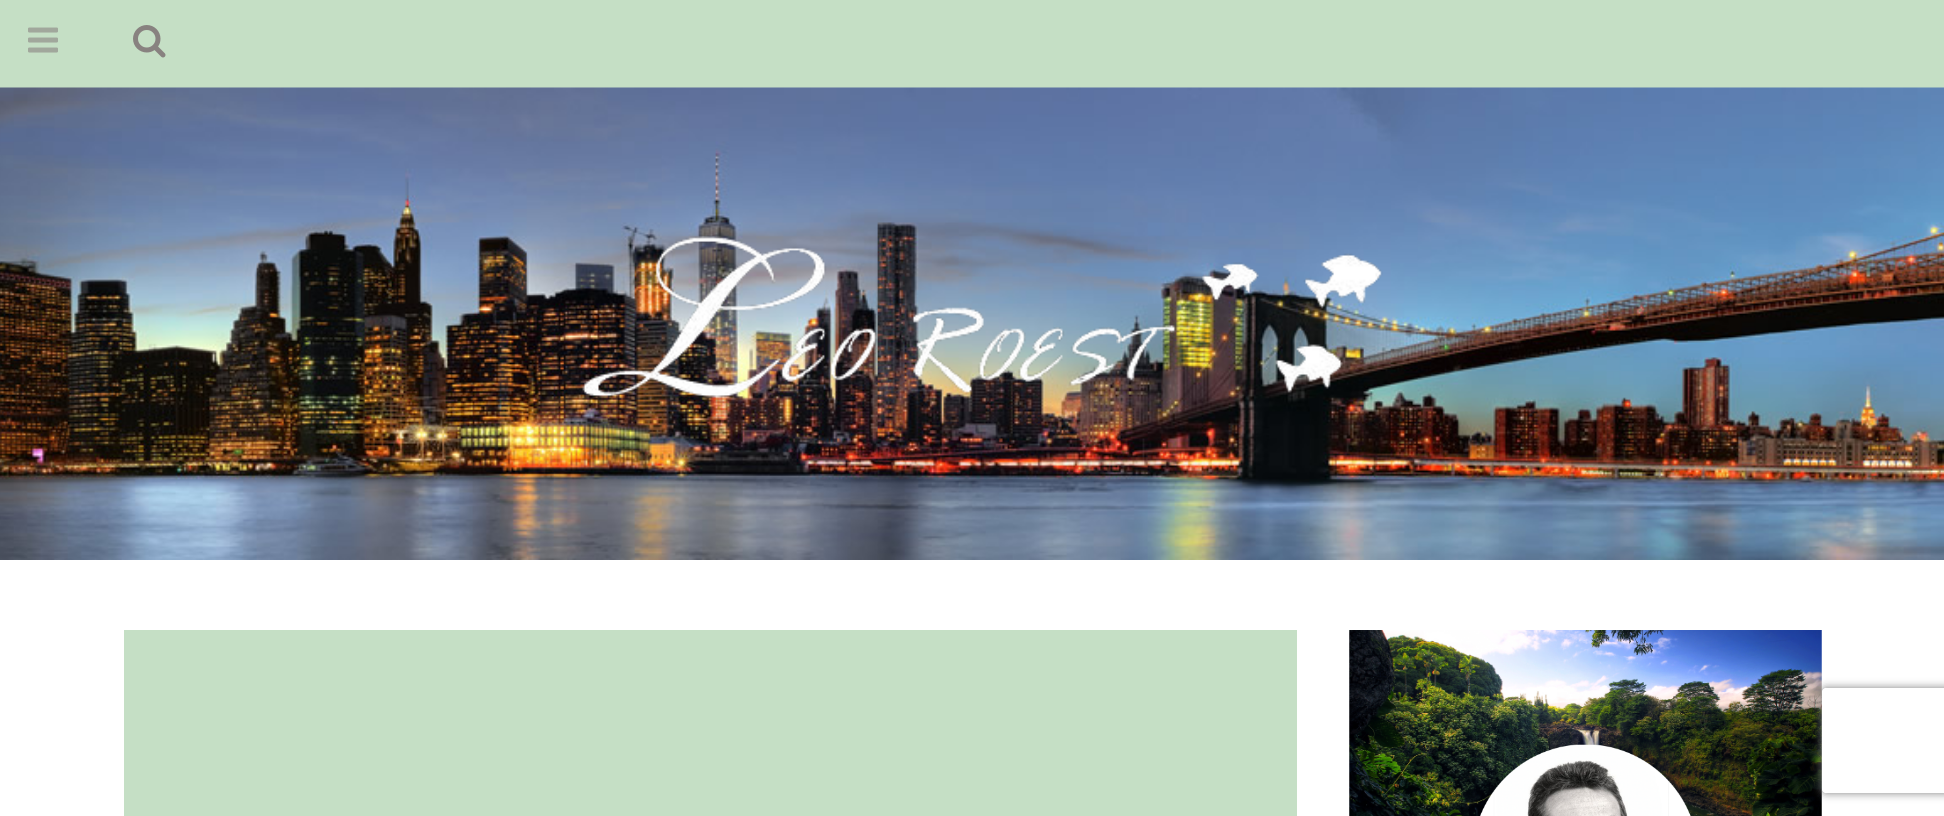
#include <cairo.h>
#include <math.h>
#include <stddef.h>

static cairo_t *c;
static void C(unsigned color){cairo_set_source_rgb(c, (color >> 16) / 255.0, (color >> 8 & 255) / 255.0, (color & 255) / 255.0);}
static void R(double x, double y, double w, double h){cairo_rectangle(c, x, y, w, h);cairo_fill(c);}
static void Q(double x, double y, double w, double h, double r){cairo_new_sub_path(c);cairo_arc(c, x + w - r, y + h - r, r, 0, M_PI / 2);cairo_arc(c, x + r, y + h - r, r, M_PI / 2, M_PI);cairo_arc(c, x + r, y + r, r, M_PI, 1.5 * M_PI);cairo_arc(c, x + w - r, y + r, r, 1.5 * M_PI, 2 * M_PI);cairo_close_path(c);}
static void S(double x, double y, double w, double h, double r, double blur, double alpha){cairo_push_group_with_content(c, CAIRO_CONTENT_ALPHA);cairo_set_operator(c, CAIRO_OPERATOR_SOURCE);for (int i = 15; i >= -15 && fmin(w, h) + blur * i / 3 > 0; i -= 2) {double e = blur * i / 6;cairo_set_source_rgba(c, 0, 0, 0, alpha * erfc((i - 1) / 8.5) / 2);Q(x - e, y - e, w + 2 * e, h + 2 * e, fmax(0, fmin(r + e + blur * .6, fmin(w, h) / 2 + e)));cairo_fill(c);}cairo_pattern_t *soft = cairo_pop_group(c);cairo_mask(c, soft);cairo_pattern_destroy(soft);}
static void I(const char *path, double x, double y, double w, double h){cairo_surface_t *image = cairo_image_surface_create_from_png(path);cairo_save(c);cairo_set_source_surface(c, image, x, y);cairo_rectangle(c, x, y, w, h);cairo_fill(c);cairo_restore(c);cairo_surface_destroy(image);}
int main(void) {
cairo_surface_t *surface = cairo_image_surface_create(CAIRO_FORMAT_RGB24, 1944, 816);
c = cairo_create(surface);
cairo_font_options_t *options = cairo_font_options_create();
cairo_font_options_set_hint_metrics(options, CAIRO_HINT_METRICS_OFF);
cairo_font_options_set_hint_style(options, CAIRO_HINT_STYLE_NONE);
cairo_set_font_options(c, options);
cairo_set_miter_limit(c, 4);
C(0xffffff);
cairo_paint(c);
C(0xc5dfc5);
R(0,0,1944,88);
I("1.png",28,27,30,26);
I("2.png",133,25,33,33);
I("3.png",0,87,1944,473);
I("4.png",582,236,801,162);
R(124,630,1173,186);
I("5.png",1349,630,473,186);
I("6.png",1480,744,211,72);
cairo_save(c);
cairo_set_fill_rule(c,CAIRO_FILL_RULE_EVEN_ODD);
cairo_new_path(c);
cairo_move_to(c,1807,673);
cairo_line_to(c,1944,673);
cairo_line_to(c,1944,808);
cairo_line_to(c,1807,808);
cairo_close_path(c);
cairo_move_to(c,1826,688);
cairo_line_to(c,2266,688);
cairo_curve_to(c,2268,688,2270,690,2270,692);
cairo_line_to(c,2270,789);
cairo_curve_to(c,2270,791,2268,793,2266,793);
cairo_line_to(c,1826,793);
cairo_curve_to(c,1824,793,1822,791,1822,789);
cairo_line_to(c,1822,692);
cairo_curve_to(c,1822,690,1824,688,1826,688);
cairo_close_path(c);
cairo_clip(c);
C(0x808080);
S(1822,688,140,105,4,4.5,1);
cairo_restore(c);
cairo_surface_write_to_png(surface, "o.png");
cairo_font_options_destroy(options);
cairo_destroy(c);
cairo_surface_destroy(surface);
return 0;
}
